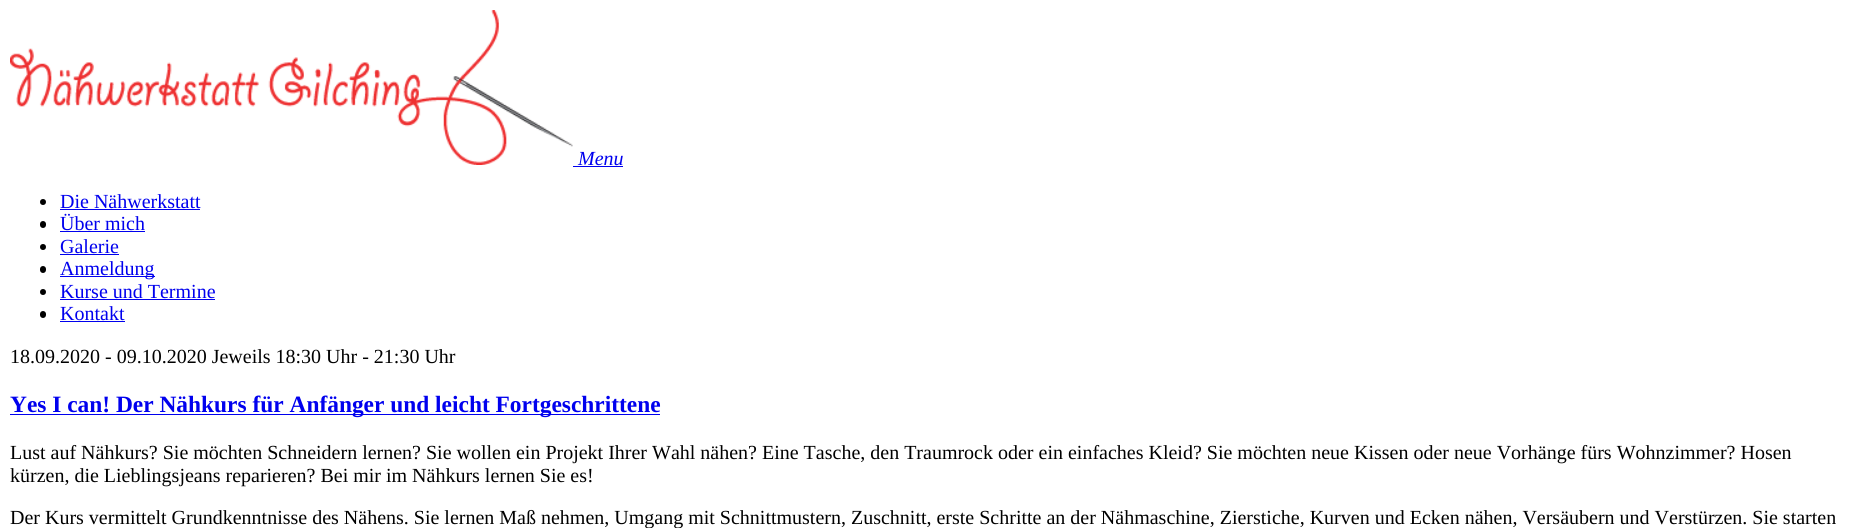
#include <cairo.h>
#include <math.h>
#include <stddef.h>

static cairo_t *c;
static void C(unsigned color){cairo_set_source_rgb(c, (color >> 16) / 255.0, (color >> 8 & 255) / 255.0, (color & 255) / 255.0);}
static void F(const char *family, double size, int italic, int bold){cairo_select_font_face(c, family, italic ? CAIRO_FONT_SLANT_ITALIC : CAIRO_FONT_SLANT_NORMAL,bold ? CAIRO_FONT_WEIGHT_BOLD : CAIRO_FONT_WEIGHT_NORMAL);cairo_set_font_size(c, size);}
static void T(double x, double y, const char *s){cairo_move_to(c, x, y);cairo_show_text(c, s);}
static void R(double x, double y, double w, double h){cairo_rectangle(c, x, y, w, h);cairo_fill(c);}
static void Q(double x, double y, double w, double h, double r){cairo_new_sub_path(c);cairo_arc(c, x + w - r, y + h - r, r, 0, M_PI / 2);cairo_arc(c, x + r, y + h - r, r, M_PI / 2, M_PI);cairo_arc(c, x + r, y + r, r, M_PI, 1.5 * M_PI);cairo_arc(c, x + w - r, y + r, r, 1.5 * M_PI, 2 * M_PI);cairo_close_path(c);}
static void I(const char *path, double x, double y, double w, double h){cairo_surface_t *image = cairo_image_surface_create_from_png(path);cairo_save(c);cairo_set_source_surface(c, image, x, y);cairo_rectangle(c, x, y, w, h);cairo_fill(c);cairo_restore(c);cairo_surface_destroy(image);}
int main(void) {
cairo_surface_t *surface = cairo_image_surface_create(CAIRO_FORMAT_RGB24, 1862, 528);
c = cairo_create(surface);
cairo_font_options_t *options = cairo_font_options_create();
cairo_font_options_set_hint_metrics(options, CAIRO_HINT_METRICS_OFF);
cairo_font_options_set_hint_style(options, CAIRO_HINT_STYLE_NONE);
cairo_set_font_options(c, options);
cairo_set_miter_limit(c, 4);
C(0xffffff);
cairo_paint(c);
I("1.png",10,10,563,155);
F("Liberation Serif",20,1,0);
C(0x0000ee);
T(578,165,"Menu");
R(573,166,50,1);
C(0x000000);
cairo_new_path(c);
cairo_arc(c,43,202,3,0,2 * M_PI);
cairo_fill(c);
F("Liberation Serif",20,0,0);
C(0x0000ee);
T(60,208,"Die Nähwerkstatt");
R(60,209,140,1);
C(0x000000);
Q(40,221,6,7,3);
cairo_fill(c);
C(0x0000ee);
T(60,230,"Über mich");
R(60,231,85,1);
C(0x000000);
cairo_new_path(c);
cairo_arc(c,43,247,3,0,2 * M_PI);
cairo_fill(c);
C(0x0000ee);
T(60,253,"Galerie");
R(60,254,59,1);
C(0x000000);
Q(40,266,6,7,3);
cairo_fill(c);
C(0x0000ee);
R(60,276,95,1);
T(60,275,"Anmeldung");
C(0x000000);
cairo_new_path(c);
cairo_arc(c,43,292,3,0,2 * M_PI);
cairo_fill(c);
C(0x0000ee);
T(60,298,"Kurse und Termine");
R(60,299,155,1);
C(0x000000);
Q(40,311,6,7,3);
cairo_fill(c);
C(0x0000ee);
T(60,320,"Kontakt");
R(60,321,65,1);
C(0x000000);
T(10,363,"18.09.2020 - 09.10.2020 Jeweils 18:30 Uhr - 21:30 Uhr");
C(0x0000ee);
R(10,414,650,1);
F("Liberation Serif",23.4,0,1);
T(10,412,"Yes I can! Der Nähkurs für Anfänger und leicht Fortgeschrittene");
F("Liberation Serif",20,0,0);
C(0x000000);
T(10,459,"Lust auf Nähkurs? Sie möchten Schneidern lernen? Sie wollen ein Projekt Ihrer Wahl nähen? Eine Tasche, den Traumrock oder ein einfaches Kleid? Sie möchten neue Kissen oder neue Vorhänge fürs Wohnzimmer? Hosen");
T(10,482,"kürzen, die Lieblingsjeans reparieren? Bei mir im Nähkurs lernen Sie es!");
T(10,524,"Der Kurs vermittelt Grundkenntnisse des Nähens. Sie lernen Maß nehmen, Umgang mit Schnittmustern, Zuschnitt, erste Schritte an der Nähmaschine, Zierstiche, Kurven und Ecken nähen, Versäubern und Verstürzen. Sie starten");
cairo_surface_write_to_png(surface, "o.png");
cairo_font_options_destroy(options);
cairo_destroy(c);
cairo_surface_destroy(surface);
return 0;
}
